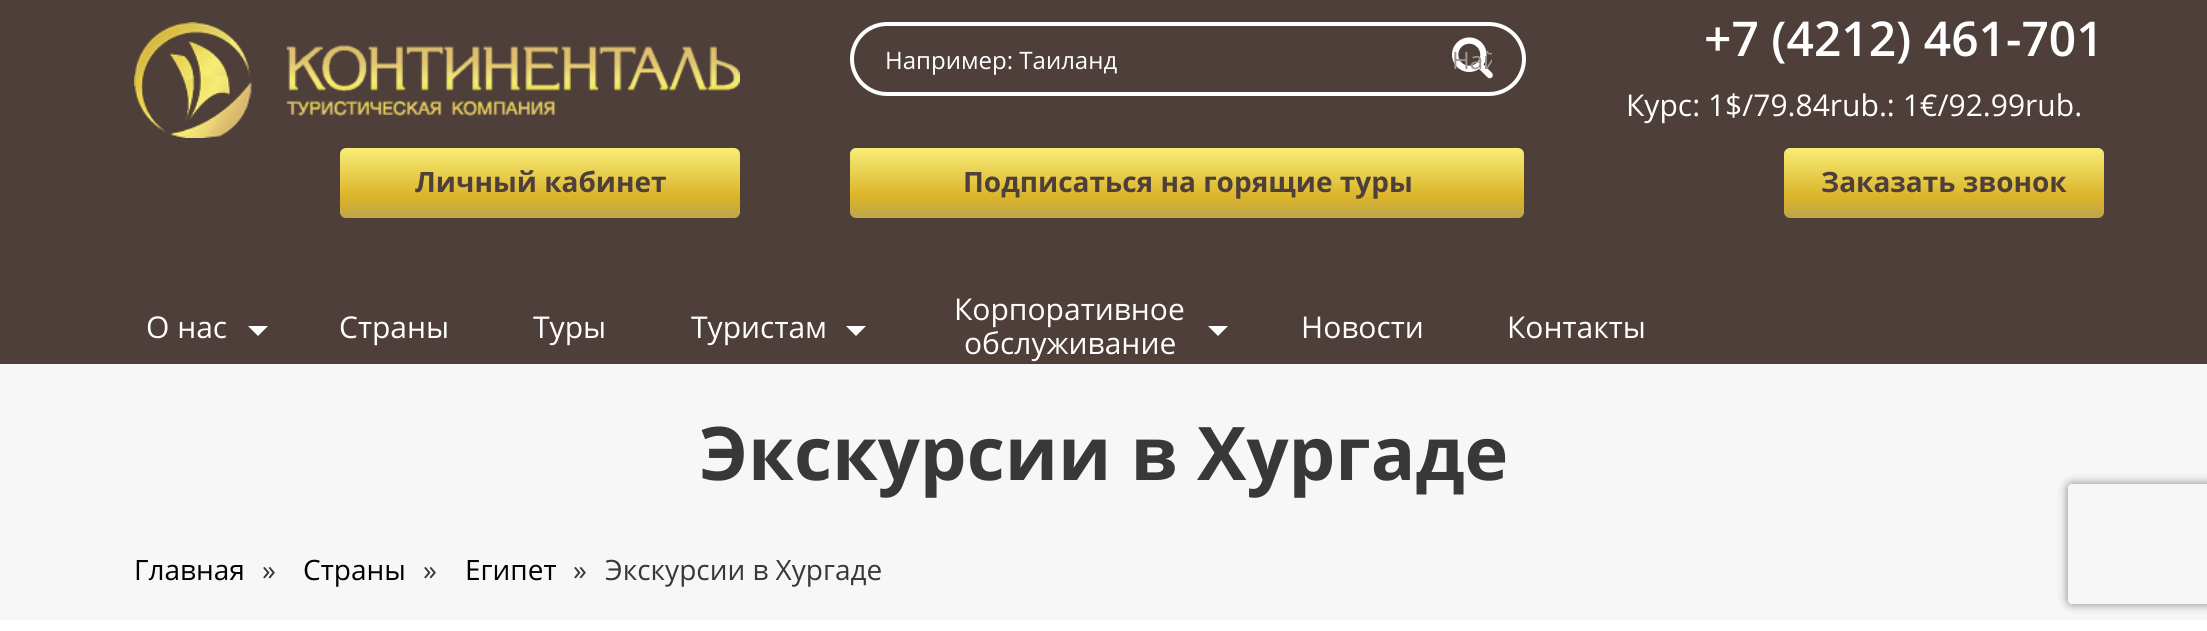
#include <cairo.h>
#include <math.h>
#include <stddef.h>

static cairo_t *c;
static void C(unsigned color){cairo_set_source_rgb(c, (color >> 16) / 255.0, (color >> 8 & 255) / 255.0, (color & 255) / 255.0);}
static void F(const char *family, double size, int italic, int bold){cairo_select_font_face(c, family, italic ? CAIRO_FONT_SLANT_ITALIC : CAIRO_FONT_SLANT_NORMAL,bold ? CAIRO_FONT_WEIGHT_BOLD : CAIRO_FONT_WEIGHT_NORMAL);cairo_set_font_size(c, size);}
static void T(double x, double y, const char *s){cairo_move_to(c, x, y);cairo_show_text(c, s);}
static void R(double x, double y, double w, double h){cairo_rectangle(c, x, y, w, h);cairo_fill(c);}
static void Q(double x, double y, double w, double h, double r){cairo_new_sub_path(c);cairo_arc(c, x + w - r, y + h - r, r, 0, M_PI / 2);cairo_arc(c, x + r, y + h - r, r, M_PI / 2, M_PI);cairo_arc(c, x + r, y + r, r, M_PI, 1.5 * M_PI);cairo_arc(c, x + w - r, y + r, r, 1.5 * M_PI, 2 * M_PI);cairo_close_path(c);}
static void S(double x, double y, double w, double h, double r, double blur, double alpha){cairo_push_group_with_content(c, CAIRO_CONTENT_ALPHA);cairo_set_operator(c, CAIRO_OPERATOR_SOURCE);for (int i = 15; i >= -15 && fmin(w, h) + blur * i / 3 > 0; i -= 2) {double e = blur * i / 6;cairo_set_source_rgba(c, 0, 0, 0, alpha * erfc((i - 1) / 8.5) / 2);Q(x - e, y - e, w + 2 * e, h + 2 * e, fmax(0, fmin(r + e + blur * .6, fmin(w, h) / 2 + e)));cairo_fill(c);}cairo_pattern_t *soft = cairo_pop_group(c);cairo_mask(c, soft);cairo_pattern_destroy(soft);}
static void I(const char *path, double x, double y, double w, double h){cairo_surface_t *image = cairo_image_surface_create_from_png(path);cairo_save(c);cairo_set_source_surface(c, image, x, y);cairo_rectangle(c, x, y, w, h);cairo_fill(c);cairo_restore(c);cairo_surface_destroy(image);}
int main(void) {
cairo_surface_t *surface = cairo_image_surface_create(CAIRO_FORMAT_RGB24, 2207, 631);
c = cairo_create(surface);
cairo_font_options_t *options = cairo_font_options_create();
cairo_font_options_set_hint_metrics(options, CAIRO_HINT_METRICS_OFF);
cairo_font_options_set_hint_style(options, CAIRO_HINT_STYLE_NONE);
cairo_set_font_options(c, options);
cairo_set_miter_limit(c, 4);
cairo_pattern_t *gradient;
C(0xffffff);
cairo_paint(c);
C(0x4f3f3a);
R(0,0,2207,364);
I("1.png",134,22,606,116);
gradient = cairo_pattern_create_linear(540,148,540,218);
cairo_pattern_add_color_stop_rgba(gradient,0,0.969,0.929,0.467,1);
cairo_pattern_add_color_stop_rgba(gradient,.71,0.855,0.702,0.157,1);
cairo_pattern_add_color_stop_rgba(gradient,1,0.745,0.655,0.302,1);
cairo_set_source(c,gradient);
cairo_pattern_destroy(gradient);
Q(340,148,400,70,6);
cairo_fill(c);
F("Open Sans",28,0,1);
C(0x4f3f3a);
T(415,192,"Личный кабинет");
Q(852,24,672,70,35);
C(0xffffff);
cairo_set_line_width(c,4);
cairo_stroke(c);
F("Open Sans",24,0,0);
T(885,69,"Например: Таиланд");
I("2.png",1452,37,41,42);
cairo_save(c);
cairo_rectangle(c,1440,26,52,66);
cairo_clip(c);
C(0x9e9592);
T(1452,69,"Най");
cairo_restore(c);
gradient = cairo_pattern_create_linear(1187,148,1187,218);
cairo_pattern_add_color_stop_rgba(gradient,0,0.969,0.929,0.467,1);
cairo_pattern_add_color_stop_rgba(gradient,.71,0.855,0.702,0.157,1);
cairo_pattern_add_color_stop_rgba(gradient,1,0.745,0.655,0.302,1);
cairo_set_source(c,gradient);
cairo_pattern_destroy(gradient);
Q(850,148,674,70,6);
cairo_fill(c);
F("Open Sans",28,0,1);
C(0x4f3f3a);
T(963,192,"Подписаться на горящие туры");
F("Open Sans SemiBold",48,0,0);
C(0xffffff);
T(1704,56,"+7 (4212) 461-701");
F("Open Sans",30,0,0);
T(1626,116,"Курс: 1$/79.84rub.: 1€/92.99rub.");
gradient = cairo_pattern_create_linear(1944,148,1944,218);
cairo_pattern_add_color_stop_rgba(gradient,0,0.969,0.929,0.467,1);
cairo_pattern_add_color_stop_rgba(gradient,.71,0.855,0.702,0.157,1);
cairo_pattern_add_color_stop_rgba(gradient,1,0.745,0.655,0.302,1);
cairo_set_source(c,gradient);
cairo_pattern_destroy(gradient);
Q(1784,148,320,70,6);
cairo_fill(c);
F("Open Sans",28,0,1);
C(0x4f3f3a);
T(1821,192,"Заказать звонок");
F("Open Sans",30,0,0);
C(0xffffff);
T(146,338,"О нас");
cairo_new_path(c);
cairo_move_to(c,248,326);
cairo_line_to(c,268,326);
cairo_line_to(c,258,336);
cairo_close_path(c);
cairo_fill(c);
T(339,338,"Страны");
T(533,338,"Туры");
T(691,338,"Туристам");
cairo_new_path(c);
cairo_move_to(c,846,326);
cairo_line_to(c,866,326);
cairo_line_to(c,856,336);
cairo_close_path(c);
cairo_fill(c);
T(954,320,"Корпоративное");
T(964,354,"обслуживание");
cairo_new_path(c);
cairo_move_to(c,1208,326);
cairo_line_to(c,1228,326);
cairo_line_to(c,1218,336);
cairo_close_path(c);
cairo_fill(c);
T(1301,338,"Новости");
T(1507,338,"Контакты");
C(0xf7f7f7);
R(0,364,2207,256);
F("Open Sans",74,0,1);
C(0x383838);
T(699,480,"Экскурсии в Хургаде");
F("Open Sans",28,0,0);
C(0x000000);
T(134,580,"Главная");
C(0x383838);
T(262,580,"»");
C(0x000000);
T(303,580,"Страны");
C(0x383838);
T(423,580,"»");
C(0x000000);
T(465,580,"Египет");
C(0x383838);
T(573,580,"»");
T(605,580,"Экскурсии в Хургаде");
cairo_save(c);
cairo_set_fill_rule(c,CAIRO_FILL_RULE_EVEN_ODD);
cairo_new_path(c);
cairo_move_to(c,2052,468);
cairo_line_to(c,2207,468);
cairo_line_to(c,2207,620);
cairo_line_to(c,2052,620);
cairo_close_path(c);
cairo_move_to(c,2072,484);
cairo_line_to(c,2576,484);
cairo_curve_to(c,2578,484,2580,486,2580,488);
cairo_line_to(c,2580,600);
cairo_curve_to(c,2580,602,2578,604,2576,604);
cairo_line_to(c,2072,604);
cairo_curve_to(c,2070,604,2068,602,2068,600);
cairo_line_to(c,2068,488);
cairo_curve_to(c,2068,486,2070,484,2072,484);
cairo_close_path(c);
cairo_clip(c);
C(0x808080);
S(2068,484,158,120,4,5,1);
cairo_restore(c);
cairo_surface_write_to_png(surface, "o.png");
cairo_font_options_destroy(options);
cairo_destroy(c);
cairo_surface_destroy(surface);
return 0;
}
